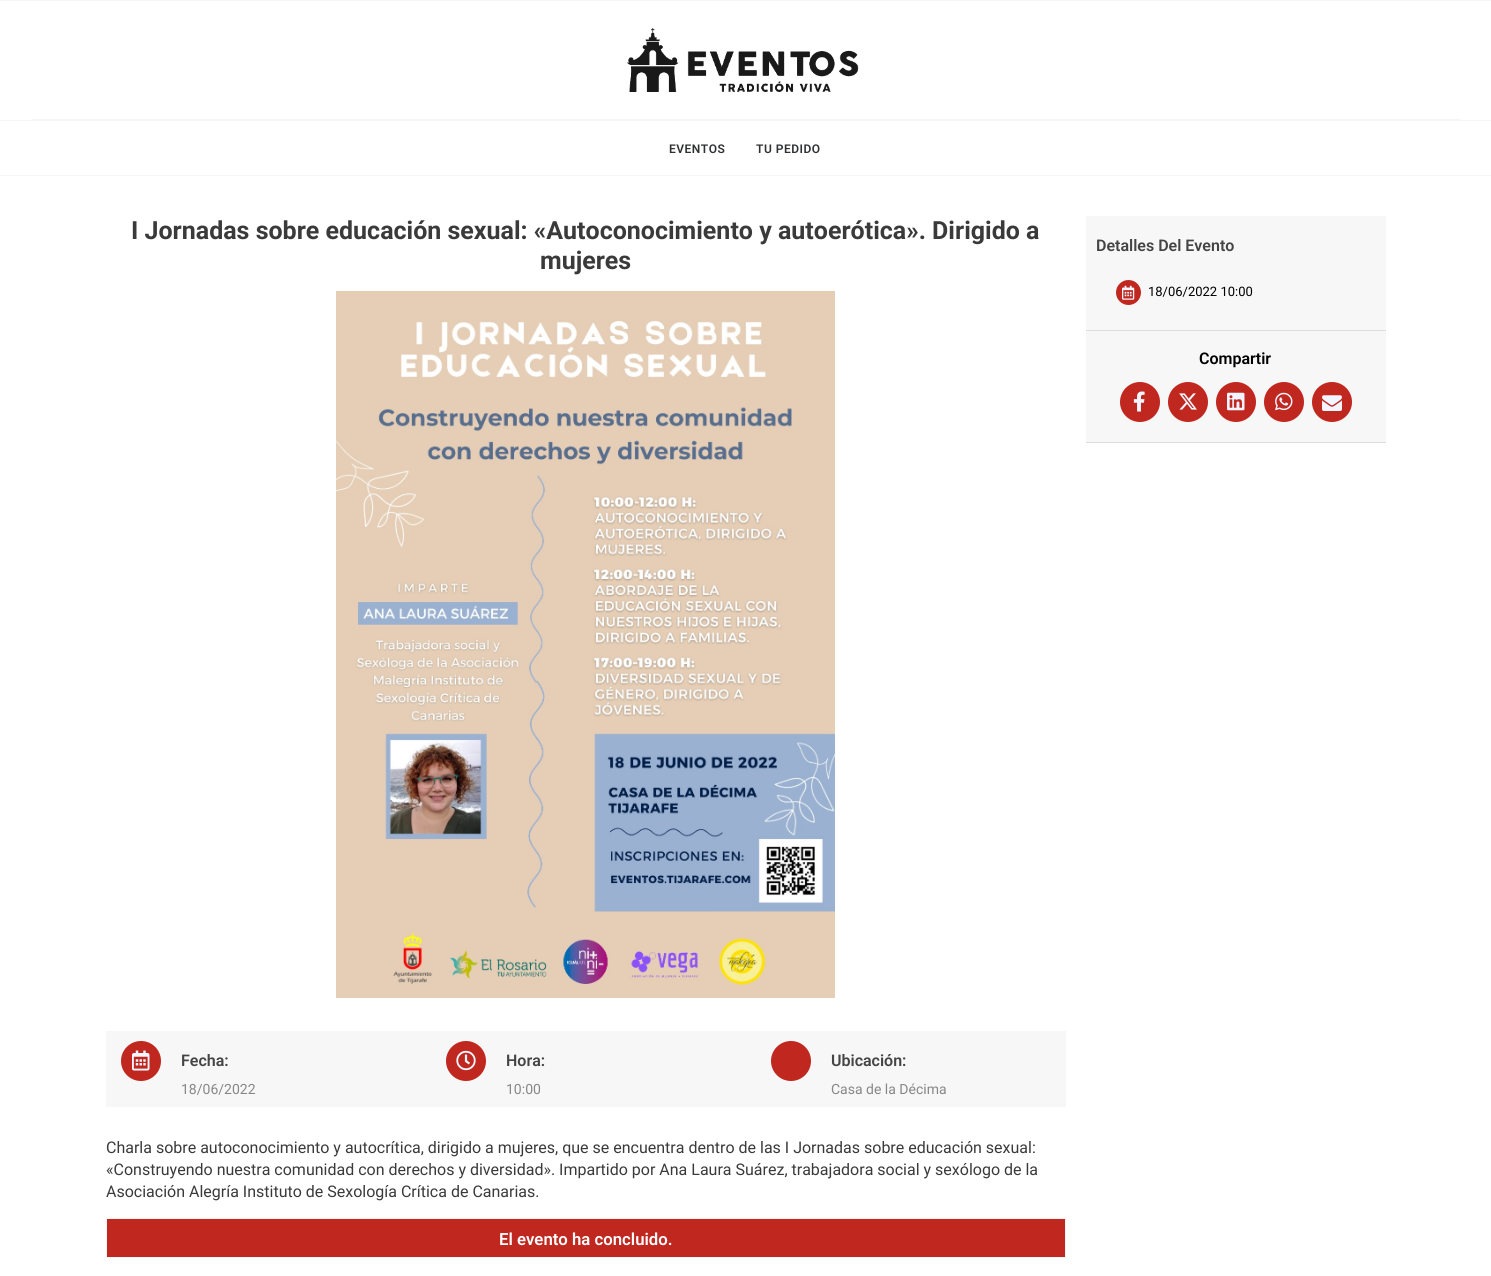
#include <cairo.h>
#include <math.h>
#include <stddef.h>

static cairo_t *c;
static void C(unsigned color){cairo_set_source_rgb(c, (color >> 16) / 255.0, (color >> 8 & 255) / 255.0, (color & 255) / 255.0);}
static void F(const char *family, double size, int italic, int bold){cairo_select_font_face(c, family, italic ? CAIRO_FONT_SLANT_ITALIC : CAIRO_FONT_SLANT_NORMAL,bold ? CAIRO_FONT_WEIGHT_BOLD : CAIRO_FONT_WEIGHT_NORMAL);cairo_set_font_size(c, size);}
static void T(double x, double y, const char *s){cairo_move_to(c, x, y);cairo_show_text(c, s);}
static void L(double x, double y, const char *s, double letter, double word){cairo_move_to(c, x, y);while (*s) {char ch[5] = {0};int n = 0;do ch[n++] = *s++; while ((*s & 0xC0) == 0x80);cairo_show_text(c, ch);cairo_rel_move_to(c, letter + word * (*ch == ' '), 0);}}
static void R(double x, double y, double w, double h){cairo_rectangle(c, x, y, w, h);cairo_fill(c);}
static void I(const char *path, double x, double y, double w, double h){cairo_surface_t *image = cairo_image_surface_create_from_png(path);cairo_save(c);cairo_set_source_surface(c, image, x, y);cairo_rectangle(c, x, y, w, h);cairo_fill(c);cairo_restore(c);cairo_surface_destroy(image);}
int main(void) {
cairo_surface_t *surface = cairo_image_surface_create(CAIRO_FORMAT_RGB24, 1491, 1276);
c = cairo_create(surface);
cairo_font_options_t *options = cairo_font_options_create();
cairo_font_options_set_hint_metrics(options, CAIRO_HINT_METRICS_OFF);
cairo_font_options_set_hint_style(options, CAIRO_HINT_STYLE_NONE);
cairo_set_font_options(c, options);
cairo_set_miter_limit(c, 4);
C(0xffffff);
cairo_paint(c);
C(0xf5f5f5);
R(0,0,1491,1);
R(32,119,1428,1);
I("1.png",627,28,232,64);
R(0,120,1491,1);
R(0,175,1491,1);
F("Roboto SemiBold",12,0,0);
C(0x303133);
L(669,153,"EVENTOS",.5,0);
L(756,153,"TU PEDIDO",.5,0);
F("Roboto",25,0,1);
C(0x3a3a3a);
T(131,239,"I Jornadas sobre educación sexual: «Autoconocimiento y autoerótica». Dirigido a");
T(540,269,"mujeres");
I("2.png",336,291,499,707);
C(0xf7f7f7);
R(106,1031,960,76);
C(0xbf271f);
cairo_arc(c,141,1061,20,0,2 * M_PI);
cairo_fill(c);
I("3.png",132,1050,18,21);
F("Roboto SemiBold",16,0,0);
C(0x444444);
T(181,1066,"Fecha:");
F("Roboto",14,0,0);
C(0x878787);
T(181,1094,"18/06/2022");
C(0xbf271f);
cairo_new_path(c);
cairo_arc(c,466,1061,20,0,2 * M_PI);
cairo_fill(c);
I("4.png",456,1050,20,21);
F("Roboto SemiBold",16,0,0);
C(0x444444);
T(506,1066,"Hora:");
F("Roboto",14,0,0);
C(0x878787);
T(506,1094,"10:00");
C(0xbf271f);
cairo_new_path(c);
cairo_arc(c,791,1061,20,0,2 * M_PI);
cairo_fill(c);
F("Roboto SemiBold",16,0,0);
C(0x444444);
T(831,1066,"Ubicación:");
F("Roboto",14,0,0);
C(0x878787);
T(831,1094,"Casa de la Décima");
F("Roboto",16,0,0);
C(0x3a3a3a);
T(106,1153,"Charla sobre autoconocimiento y autocrítica, dirigido a mujeres, que se encuentra dentro de las I Jornadas sobre educación sexual:");
T(106,1175,"«Construyendo nuestra comunidad con derechos y diversidad». Impartido por Ana Laura Suárez, trabajadora social y sexólogo de la");
T(106,1197,"Asociación Alegría Instituto de Sexología Crítica de Canarias.");
C(0xbf271f);
cairo_rectangle(c,106.5,1218.5,959,39);
cairo_fill_preserve(c);
C(0xf5f5f5);
cairo_set_line_width(c,1);
cairo_stroke(c);
F("Roboto SemiBold",16.75,0,0);
C(0xffffff);
T(499,1245,"El evento ha concluido.");
C(0xf7f7f7);
R(1086,216,300,226);
C(0xdddddd);
R(1086,330,300,1);
F("Roboto SemiBold",16,0,0);
C(0x444444);
T(1096,251,"Detalles Del Evento");
C(0xbf271f);
cairo_new_path(c);
cairo_arc(c,1128.5,292.5,12.5,0,2 * M_PI);
cairo_fill(c);
I("5.png",1122,285,13,15);
F("Roboto",13,0,0);
C(0x000000);
T(1148,296,"18/06/2022 10:00");
C(0xdddddd);
R(1086,442,300,1);
F("Roboto SemiBold",16,0,0);
C(0x000000);
T(1199,364,"Compartir");
C(0xbf271f);
cairo_new_path(c);
cairo_arc(c,1140,402,20,0,2 * M_PI);
cairo_fill(c);
I("6.png",1133,391,12,21);
cairo_arc(c,1188,402,20,0,2 * M_PI);
cairo_fill(c);
I("7.png",1179,393,18,17);
cairo_arc(c,1236,402,20,0,2 * M_PI);
cairo_fill(c);
I("8.png",1227,392,18,19);
cairo_arc(c,1284,402,20,0,2 * M_PI);
cairo_fill(c);
I("9.png",1275,392,18,19);
cairo_arc(c,1332,402,20,0,2 * M_PI);
cairo_fill(c);
I("10.png",1322,395,20,16);
cairo_surface_write_to_png(surface, "o.png");
cairo_font_options_destroy(options);
cairo_destroy(c);
cairo_surface_destroy(surface);
return 0;
}
